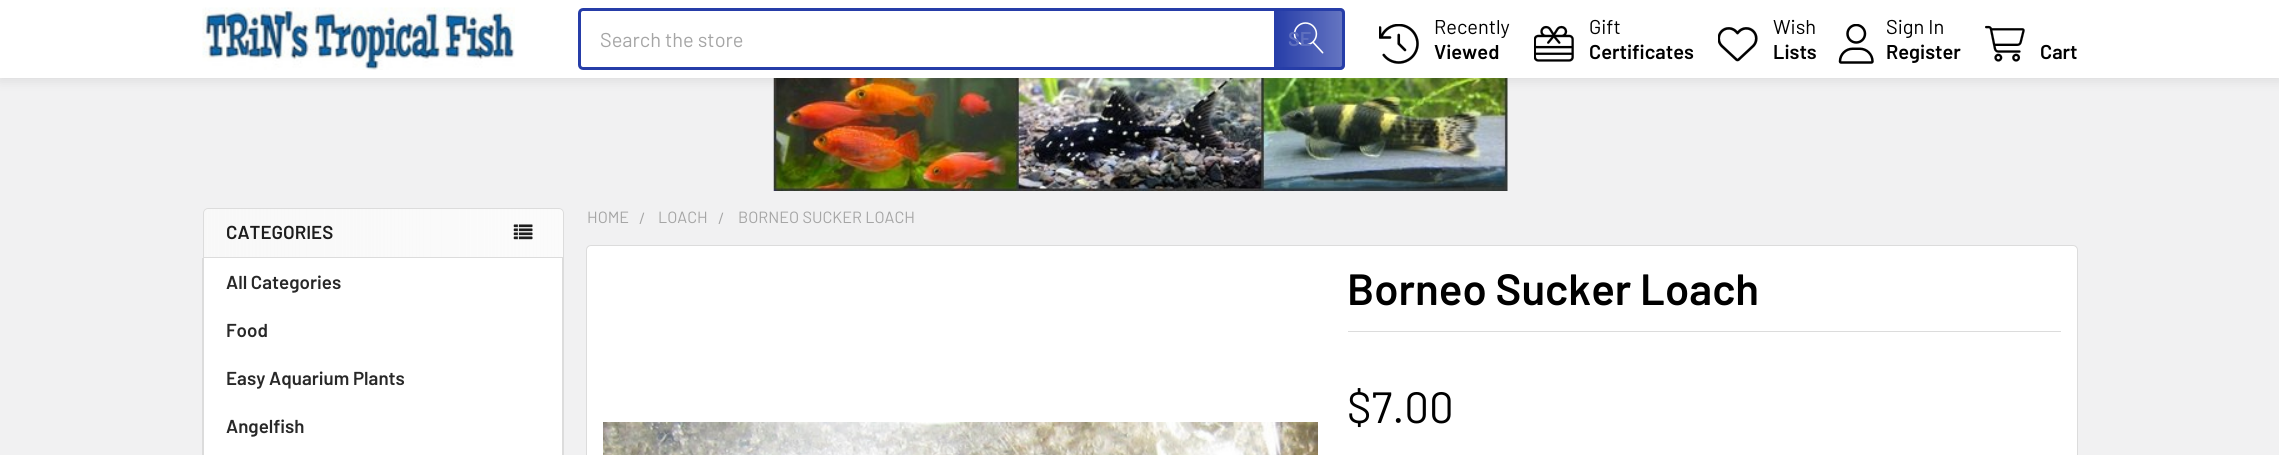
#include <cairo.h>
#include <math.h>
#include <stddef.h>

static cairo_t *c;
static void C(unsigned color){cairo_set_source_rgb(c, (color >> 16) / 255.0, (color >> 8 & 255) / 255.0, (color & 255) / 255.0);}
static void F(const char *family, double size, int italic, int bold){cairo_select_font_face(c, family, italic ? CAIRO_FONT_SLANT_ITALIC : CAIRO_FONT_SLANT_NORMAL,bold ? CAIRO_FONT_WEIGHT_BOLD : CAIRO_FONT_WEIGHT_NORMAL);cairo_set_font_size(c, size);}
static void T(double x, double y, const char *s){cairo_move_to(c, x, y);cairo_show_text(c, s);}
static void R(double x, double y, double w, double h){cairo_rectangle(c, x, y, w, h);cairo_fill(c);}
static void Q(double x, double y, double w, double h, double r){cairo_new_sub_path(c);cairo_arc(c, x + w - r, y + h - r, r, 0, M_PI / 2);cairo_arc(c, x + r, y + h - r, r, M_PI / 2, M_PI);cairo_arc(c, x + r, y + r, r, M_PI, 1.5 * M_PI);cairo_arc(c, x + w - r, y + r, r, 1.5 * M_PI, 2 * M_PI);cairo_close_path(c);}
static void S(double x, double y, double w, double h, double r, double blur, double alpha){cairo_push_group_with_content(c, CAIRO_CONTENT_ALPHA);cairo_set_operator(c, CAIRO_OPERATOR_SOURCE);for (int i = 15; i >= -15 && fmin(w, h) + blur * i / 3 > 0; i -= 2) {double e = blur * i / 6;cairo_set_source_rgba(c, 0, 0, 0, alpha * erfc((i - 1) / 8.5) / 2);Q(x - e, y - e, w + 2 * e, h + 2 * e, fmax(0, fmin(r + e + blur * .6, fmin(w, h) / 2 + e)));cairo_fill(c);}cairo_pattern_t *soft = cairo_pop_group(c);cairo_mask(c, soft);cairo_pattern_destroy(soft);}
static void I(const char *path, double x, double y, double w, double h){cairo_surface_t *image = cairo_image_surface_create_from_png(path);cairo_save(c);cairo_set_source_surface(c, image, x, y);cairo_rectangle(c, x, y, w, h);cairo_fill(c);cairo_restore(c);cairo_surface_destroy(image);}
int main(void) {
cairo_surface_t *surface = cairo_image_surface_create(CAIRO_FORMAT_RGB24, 2279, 455);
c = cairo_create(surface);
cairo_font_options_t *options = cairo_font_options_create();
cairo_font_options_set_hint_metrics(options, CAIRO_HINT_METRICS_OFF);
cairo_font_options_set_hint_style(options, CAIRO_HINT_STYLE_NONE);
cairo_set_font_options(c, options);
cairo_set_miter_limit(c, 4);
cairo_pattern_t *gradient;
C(0xf1f1f2);
cairo_paint(c);
I("8.png",773,78,735,113);
C(0x000000);
S(0,3,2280,77,0,6,.1);
C(0xffffff);
R(0,0,2279,78);
I("1.png",202,7,313,63);
Q(579.5,9.5,764,59,3.5);
C(0x263da8);
cairo_set_line_width(c,3);
cairo_stroke(c);
gradient = cairo_pattern_create_linear(1274,39,1345,39);
cairo_pattern_add_color_stop_rgba(gradient,0,0.149,0.239,0.659,1);
cairo_pattern_add_color_stop_rgba(gradient,1,0.149,0.239,0.659,.7);
cairo_set_source(c,gradient);
cairo_pattern_destroy(gradient);
cairo_new_path(c);
cairo_move_to(c,1274,8);
cairo_line_to(c,1340,8);
cairo_curve_to(c,1343,8,1345,10,1345,13);
cairo_line_to(c,1345,65);
cairo_curve_to(c,1345,68,1343,70,1340,70);
cairo_line_to(c,1274,70);
cairo_close_path(c);
cairo_fill(c);
I("2.png",1293,22,31,32);
F("Barlow",20,0,0);
C(0xa5a5a5);
T(600,47,"Search the store");
F("Barlow SemiBold",20,0,0);
C(0x5e6fbe);
T(1288,46,"SE");
I("3.png",1379,24,40,40);
F("Barlow",20,0,0);
C(0x000000);
T(1434,34,"Recently");
F("Barlow SemiBold",20,0,0);
T(1434,59,"Viewed");
I("4.png",1534,25,40,37);
F("Barlow",20,0,0);
T(1589,34,"Gift");
F("Barlow SemiBold",20,0,0);
T(1589,59,"Certificates");
I("5.png",1718,27,40,35);
F("Barlow",20,0,0);
T(1773,34,"Wish");
F("Barlow SemiBold",20,0,0);
T(1773,59,"Lists");
I("6.png",1838,24,36,40);
F("Barlow",20,0,0);
T(1886,34,"Sign In");
F("Barlow SemiBold",20,0,0);
T(1886,59,"Register");
I("7.png",1985,25,40,37);
T(2040,59,"Cart");
C(0xffffff);
Q(203,208,361,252,5);
cairo_fill(c);
gradient = cairo_pattern_create_linear(202,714,564,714);
cairo_pattern_add_color_stop_rgba(gradient,0,0.973,0.973,0.973,1);
cairo_pattern_add_color_stop_rgba(gradient,1,0.973,0.973,0.973,.6);
cairo_set_source(c,gradient);
cairo_pattern_destroy(gradient);
Q(203,208,361,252,5);
cairo_fill(c);
cairo_new_path(c);
cairo_move_to(c,208,208.5);
cairo_line_to(c,559,208.5);
cairo_curve_to(c,561.5,208.5,563.5,210.5,563.5,213);
cairo_line_to(c,563.5,257.5);
cairo_line_to(c,203.5,257.5);
cairo_line_to(c,203.5,213);
cairo_curve_to(c,203.5,210.5,205.5,208.5,208,208.5);
cairo_close_path(c);
C(0xdcdcdc);
cairo_set_line_width(c,1);
cairo_stroke(c);
F("Barlow SemiBold",18.75,0,0);
C(0x1d1d1d);
T(226,239,"CATEGORIES");
I("9.png",513,224,20,16);
C(0xffffff);
R(204,258,358,197);
C(0xdcdcdc);
cairo_set_fill_rule(c,CAIRO_FILL_RULE_EVEN_ODD);
cairo_new_path(c);
cairo_move_to(c,202,258);
cairo_line_to(c,564,258);
cairo_line_to(c,564,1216);
cairo_curve_to(c,564,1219,562,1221,559,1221);
cairo_line_to(c,208,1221);
cairo_curve_to(c,205,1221,202,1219,202,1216);
cairo_close_path(c);
cairo_move_to(c,204,258);
cairo_line_to(c,562,258);
cairo_line_to(c,562,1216);
cairo_curve_to(c,562,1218,561,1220,559,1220);
cairo_line_to(c,208,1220);
cairo_curve_to(c,205,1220,204,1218,204,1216);
cairo_close_path(c);
cairo_fill(c);
C(0x282828);
T(226,289,"All Categories");
T(226,337,"Food");
T(226,385,"Easy Aquarium Plants");
T(226,433,"Angelfish");
F("Barlow",16.25,0,0);
C(0xa5a5a5);
T(587,223,"HOME");
T(639,224,"/");
T(658,223,"LOACH");
T(718,224,"/");
T(738,223,"BORNEO SUCKER LOACH");
C(0xffffff);
Q(586.5,245.5,1491,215,4.5);
cairo_fill_preserve(c);
C(0xdcdcdc);
cairo_stroke(c);
F("Barlow SemiBold",43.75,0,0);
C(0x000000);
T(1347,305,"Borneo Sucker Loach");
C(0xdcdcdc);
R(1348,331,713,1);
F("Barlow",43.75,0,0);
C(0x000000);
T(1347,423,"$7.00");
I("10.png",603,422,715,33);
cairo_surface_write_to_png(surface, "o.png");
cairo_font_options_destroy(options);
cairo_destroy(c);
cairo_surface_destroy(surface);
return 0;
}
